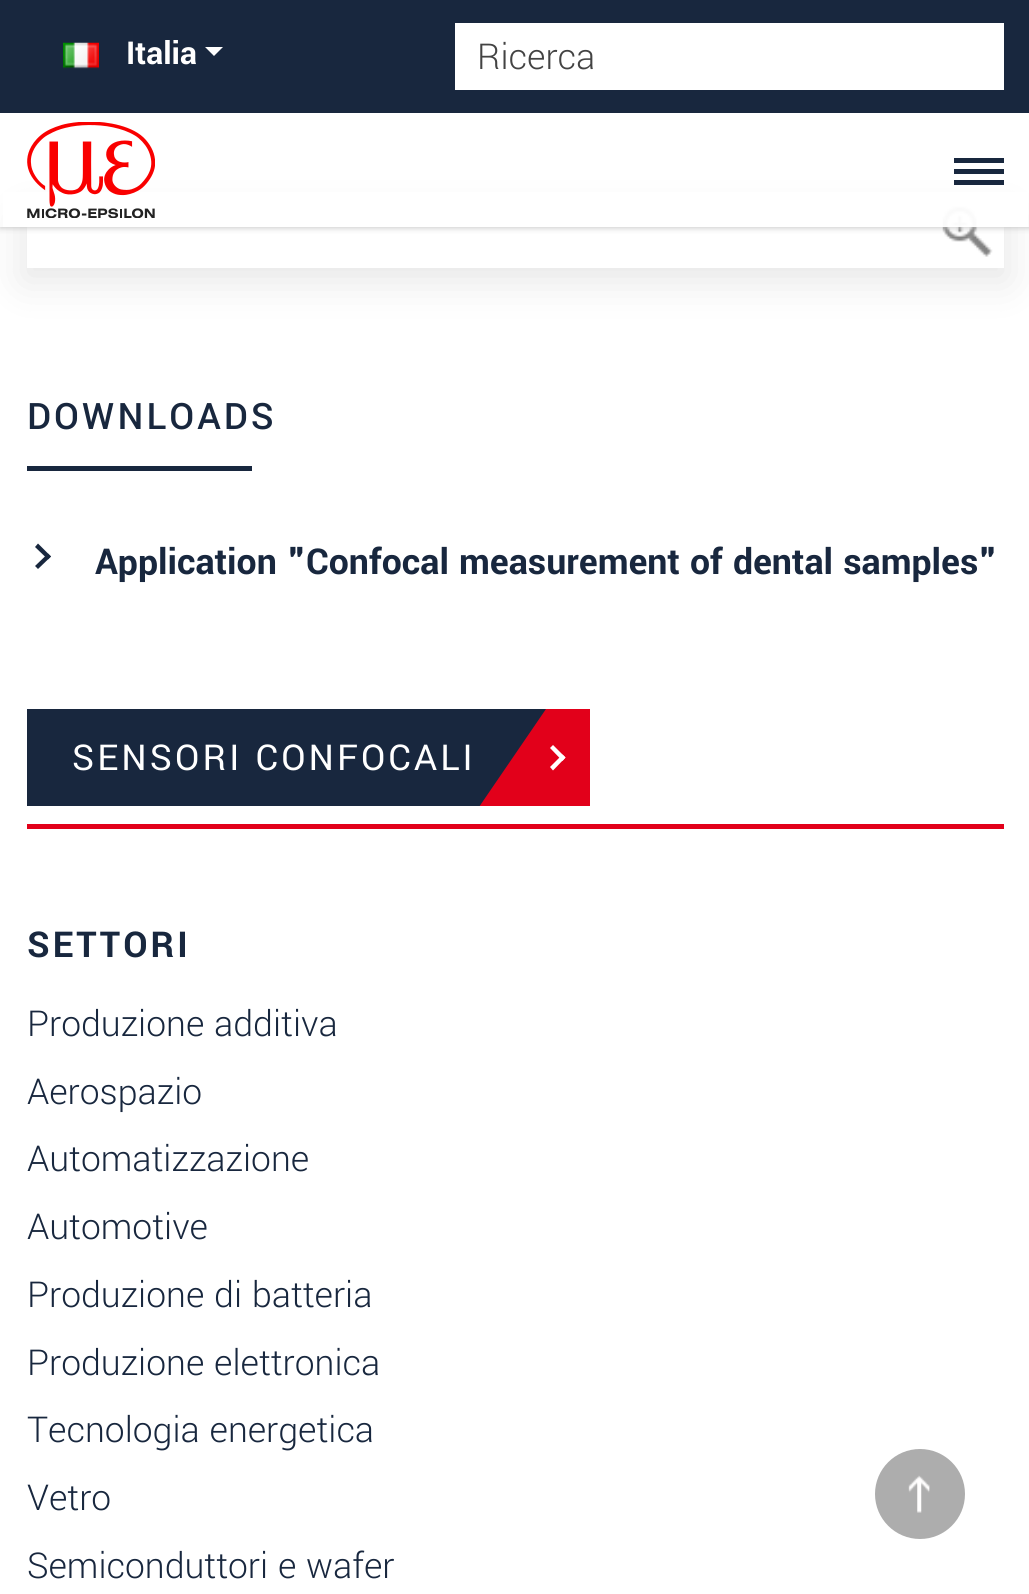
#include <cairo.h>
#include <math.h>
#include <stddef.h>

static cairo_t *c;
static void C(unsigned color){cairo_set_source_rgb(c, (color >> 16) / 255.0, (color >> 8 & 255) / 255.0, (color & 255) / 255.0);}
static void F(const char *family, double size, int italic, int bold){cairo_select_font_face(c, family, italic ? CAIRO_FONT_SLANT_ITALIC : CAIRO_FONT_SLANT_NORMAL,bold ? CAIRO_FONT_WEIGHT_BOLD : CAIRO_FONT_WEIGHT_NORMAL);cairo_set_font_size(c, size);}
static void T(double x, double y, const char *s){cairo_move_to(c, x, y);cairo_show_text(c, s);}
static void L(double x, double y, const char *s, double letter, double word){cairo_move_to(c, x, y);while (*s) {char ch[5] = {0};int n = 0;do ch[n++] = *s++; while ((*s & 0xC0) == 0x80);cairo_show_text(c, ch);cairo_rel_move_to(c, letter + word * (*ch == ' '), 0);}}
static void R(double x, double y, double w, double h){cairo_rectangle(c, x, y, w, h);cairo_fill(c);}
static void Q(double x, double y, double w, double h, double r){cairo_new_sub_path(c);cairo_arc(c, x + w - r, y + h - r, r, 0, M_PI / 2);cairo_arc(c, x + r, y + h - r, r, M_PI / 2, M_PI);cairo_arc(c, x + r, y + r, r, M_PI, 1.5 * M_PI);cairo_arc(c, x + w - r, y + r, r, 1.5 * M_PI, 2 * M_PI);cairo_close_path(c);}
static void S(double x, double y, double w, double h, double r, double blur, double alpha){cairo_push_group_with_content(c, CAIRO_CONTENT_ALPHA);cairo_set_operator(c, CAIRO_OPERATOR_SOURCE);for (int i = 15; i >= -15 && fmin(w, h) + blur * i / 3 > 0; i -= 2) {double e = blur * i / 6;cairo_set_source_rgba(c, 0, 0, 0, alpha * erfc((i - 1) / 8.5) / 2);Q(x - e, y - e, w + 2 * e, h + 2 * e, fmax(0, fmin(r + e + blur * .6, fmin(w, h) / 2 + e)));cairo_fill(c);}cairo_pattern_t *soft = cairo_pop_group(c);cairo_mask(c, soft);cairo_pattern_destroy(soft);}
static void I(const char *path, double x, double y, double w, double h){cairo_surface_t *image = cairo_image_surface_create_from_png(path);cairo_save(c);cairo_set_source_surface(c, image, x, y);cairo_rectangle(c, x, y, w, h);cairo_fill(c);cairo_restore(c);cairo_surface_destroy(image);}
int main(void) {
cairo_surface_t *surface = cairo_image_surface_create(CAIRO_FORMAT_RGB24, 1029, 1594);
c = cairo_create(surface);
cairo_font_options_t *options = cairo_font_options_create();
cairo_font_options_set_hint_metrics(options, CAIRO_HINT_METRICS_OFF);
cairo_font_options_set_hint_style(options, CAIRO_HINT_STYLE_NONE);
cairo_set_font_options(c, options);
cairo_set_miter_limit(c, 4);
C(0xffffff);
cairo_paint(c);
cairo_save(c);
cairo_set_fill_rule(c,CAIRO_FILL_RULE_EVEN_ODD);
cairo_new_path(c);
cairo_move_to(c,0,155);
cairo_line_to(c,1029,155);
cairo_line_to(c,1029,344);
cairo_line_to(c,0,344);
cairo_close_path(c);
cairo_move_to(c,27,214);
cairo_line_to(c,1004,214);
cairo_line_to(c,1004,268);
cairo_line_to(c,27,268);
cairo_close_path(c);
cairo_clip(c);
C(0x000000);
S(23,218,985,63,0,20.5,.1);
cairo_restore(c);
I("3.png",942,206,51,51);
cairo_save(c);
cairo_rectangle(c,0,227,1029,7);
cairo_clip(c);
C(0xbbbbbb);
S(0,0,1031,227,0,3.5,1);
cairo_restore(c);
cairo_set_source_rgba(c,1,1,1,0.96);
R(3,192,1025,35);
C(0x18273e);
R(0,0,1029,113);
I("1.png",63,42,36,27);
F("Yantramanav",35,0,1);
C(0xffffff);
T(126,64,"Italia");
cairo_new_path(c);
cairo_move_to(c,205,47);
cairo_line_to(c,223,47);
cairo_line_to(c,214,56);
cairo_close_path(c);
cairo_fill(c);
R(455,23,549,67);
F("Yantramanav Light",39.6,0,0);
C(0x434343);
T(477,69,"Ricerca");
I("2.png",27,122,128,96);
C(0x18273e);
R(954,158,50,5);
R(954,169,50,5);
R(954,180,50,5);
F("Yantramanav Medium",40.5,0,0);
L(27,429,"DOWNLOADS",3.1,0);
R(27,466,225,5);
cairo_new_path(c);
cairo_move_to(c,38,543.5);
cairo_line_to(c,51,556.5);
cairo_line_to(c,48,559.5);
cairo_line_to(c,35,547);
cairo_close_path(c);
cairo_fill(c);
cairo_new_path(c);
cairo_move_to(c,48,553.5);
cairo_line_to(c,51,556.5);
cairo_line_to(c,38,569);
cairo_line_to(c,35,566);
cairo_close_path(c);
cairo_fill(c);
F("Yantramanav",39.6,0,1);
T(95,574,"Application \"Confocal measurement of dental samples\"");
R(27,709,519,97);
F("Yantramanav",39.6,0,0);
C(0xffffff);
L(72,770,"SENSORI CONFOCALI",3.1,0);
cairo_save(c);
cairo_rectangle(c,27,709,563,97);
cairo_clip(c);
C(0xe2001a);
cairo_new_path(c);
cairo_move_to(c,479,807);
cairo_line_to(c,546,709);
cairo_line_to(c,591,709);
cairo_line_to(c,591,807);
cairo_close_path(c);
cairo_fill(c);
cairo_restore(c);
cairo_new_path(c);
cairo_move_to(c,553,745);
cairo_line_to(c,565.5,757.5);
cairo_line_to(c,562.5,761);
cairo_line_to(c,550,748);
cairo_close_path(c);
cairo_fill(c);
cairo_new_path(c);
cairo_move_to(c,562.5,754.5);
cairo_line_to(c,565.5,757.5);
cairo_line_to(c,553,770.5);
cairo_line_to(c,550,767);
cairo_close_path(c);
cairo_fill(c);
C(0xe2001a);
R(27,824,977,5);
F("Yantramanav",39.6,0,1);
C(0x18273e);
L(27,957,"SETTORI",3.1,0);
F("Yantramanav Light",39.6,0,0);
T(27,1036,"Produzione additiva");
T(27,1104,"Aerospazio");
T(27,1171,"Automatizzazione");
T(27,1239,"Automotive");
T(27,1307,"Produzione di batteria");
T(27,1375,"Produzione elettronica");
T(27,1442,"Tecnologia energetica");
T(27,1510,"Vetro");
T(27,1578,"Semiconduttori e wafer");
C(0xadadad);
cairo_new_path(c);
cairo_arc(c,920,1494,45,0,2 * M_PI);
cairo_fill(c);
I("4.png",908,1475,22,38);
cairo_surface_write_to_png(surface, "o.png");
cairo_font_options_destroy(options);
cairo_destroy(c);
cairo_surface_destroy(surface);
return 0;
}
